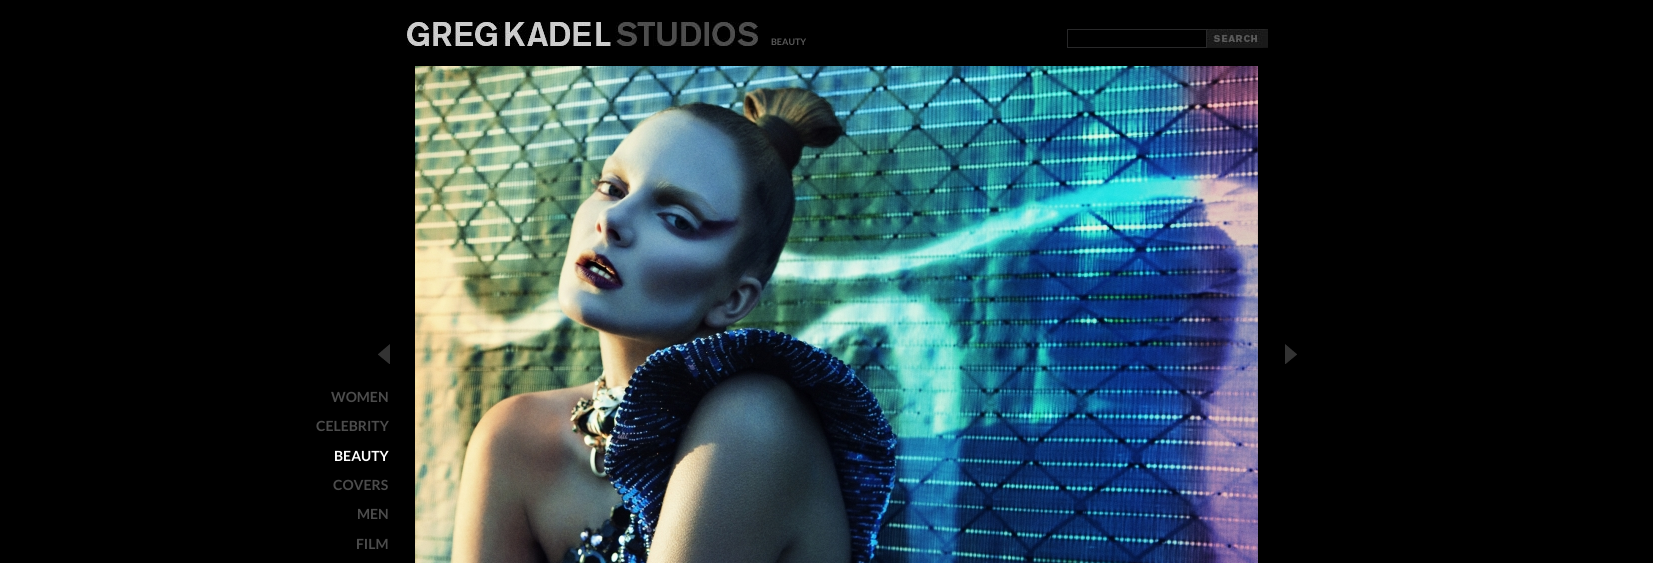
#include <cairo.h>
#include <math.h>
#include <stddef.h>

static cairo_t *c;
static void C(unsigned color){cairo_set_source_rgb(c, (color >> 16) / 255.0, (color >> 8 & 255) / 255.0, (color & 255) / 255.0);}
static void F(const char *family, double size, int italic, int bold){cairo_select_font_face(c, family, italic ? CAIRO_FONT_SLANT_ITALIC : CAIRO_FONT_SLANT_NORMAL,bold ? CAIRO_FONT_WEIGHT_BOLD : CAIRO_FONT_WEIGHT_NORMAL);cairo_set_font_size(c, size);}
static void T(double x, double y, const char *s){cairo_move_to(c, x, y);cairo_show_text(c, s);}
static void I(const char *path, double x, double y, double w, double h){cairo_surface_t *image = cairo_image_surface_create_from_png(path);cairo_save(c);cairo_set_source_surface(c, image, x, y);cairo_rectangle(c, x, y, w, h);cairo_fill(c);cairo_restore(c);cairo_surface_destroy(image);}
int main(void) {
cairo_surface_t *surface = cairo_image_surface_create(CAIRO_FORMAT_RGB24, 1653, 563);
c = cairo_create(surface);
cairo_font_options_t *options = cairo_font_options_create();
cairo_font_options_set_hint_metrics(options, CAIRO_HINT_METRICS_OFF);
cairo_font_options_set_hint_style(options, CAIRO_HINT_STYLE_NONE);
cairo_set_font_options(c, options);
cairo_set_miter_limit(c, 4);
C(0x000000);
cairo_paint(c);
I("1.png",407,22,351,24);
F("Lato",9,0,1);
C(0x595959);
T(771,45,"BEAUTY");
cairo_rectangle(c,1067.5,29.5,139,18);
C(0x282829);
cairo_set_line_width(c,1);
cairo_stroke(c);
I("2.png",1207,29,61,19);
F("Lato",14,0,1);
C(0x4c4c4c);
T(331,402,"WOMEN");
T(316,431,"CELEBRITY");
C(0xffffff);
T(334,461,"BEAUTY");
C(0x4c4c4c);
T(333,490,"COVERS");
T(357,519,"MEN");
T(356,549,"FILM");
I("3.png",415,66,843,497);
I("4.png",378,344,12,20);
I("5.png",1285,344,12,20);
cairo_surface_write_to_png(surface, "o.png");
cairo_font_options_destroy(options);
cairo_destroy(c);
cairo_surface_destroy(surface);
return 0;
}
